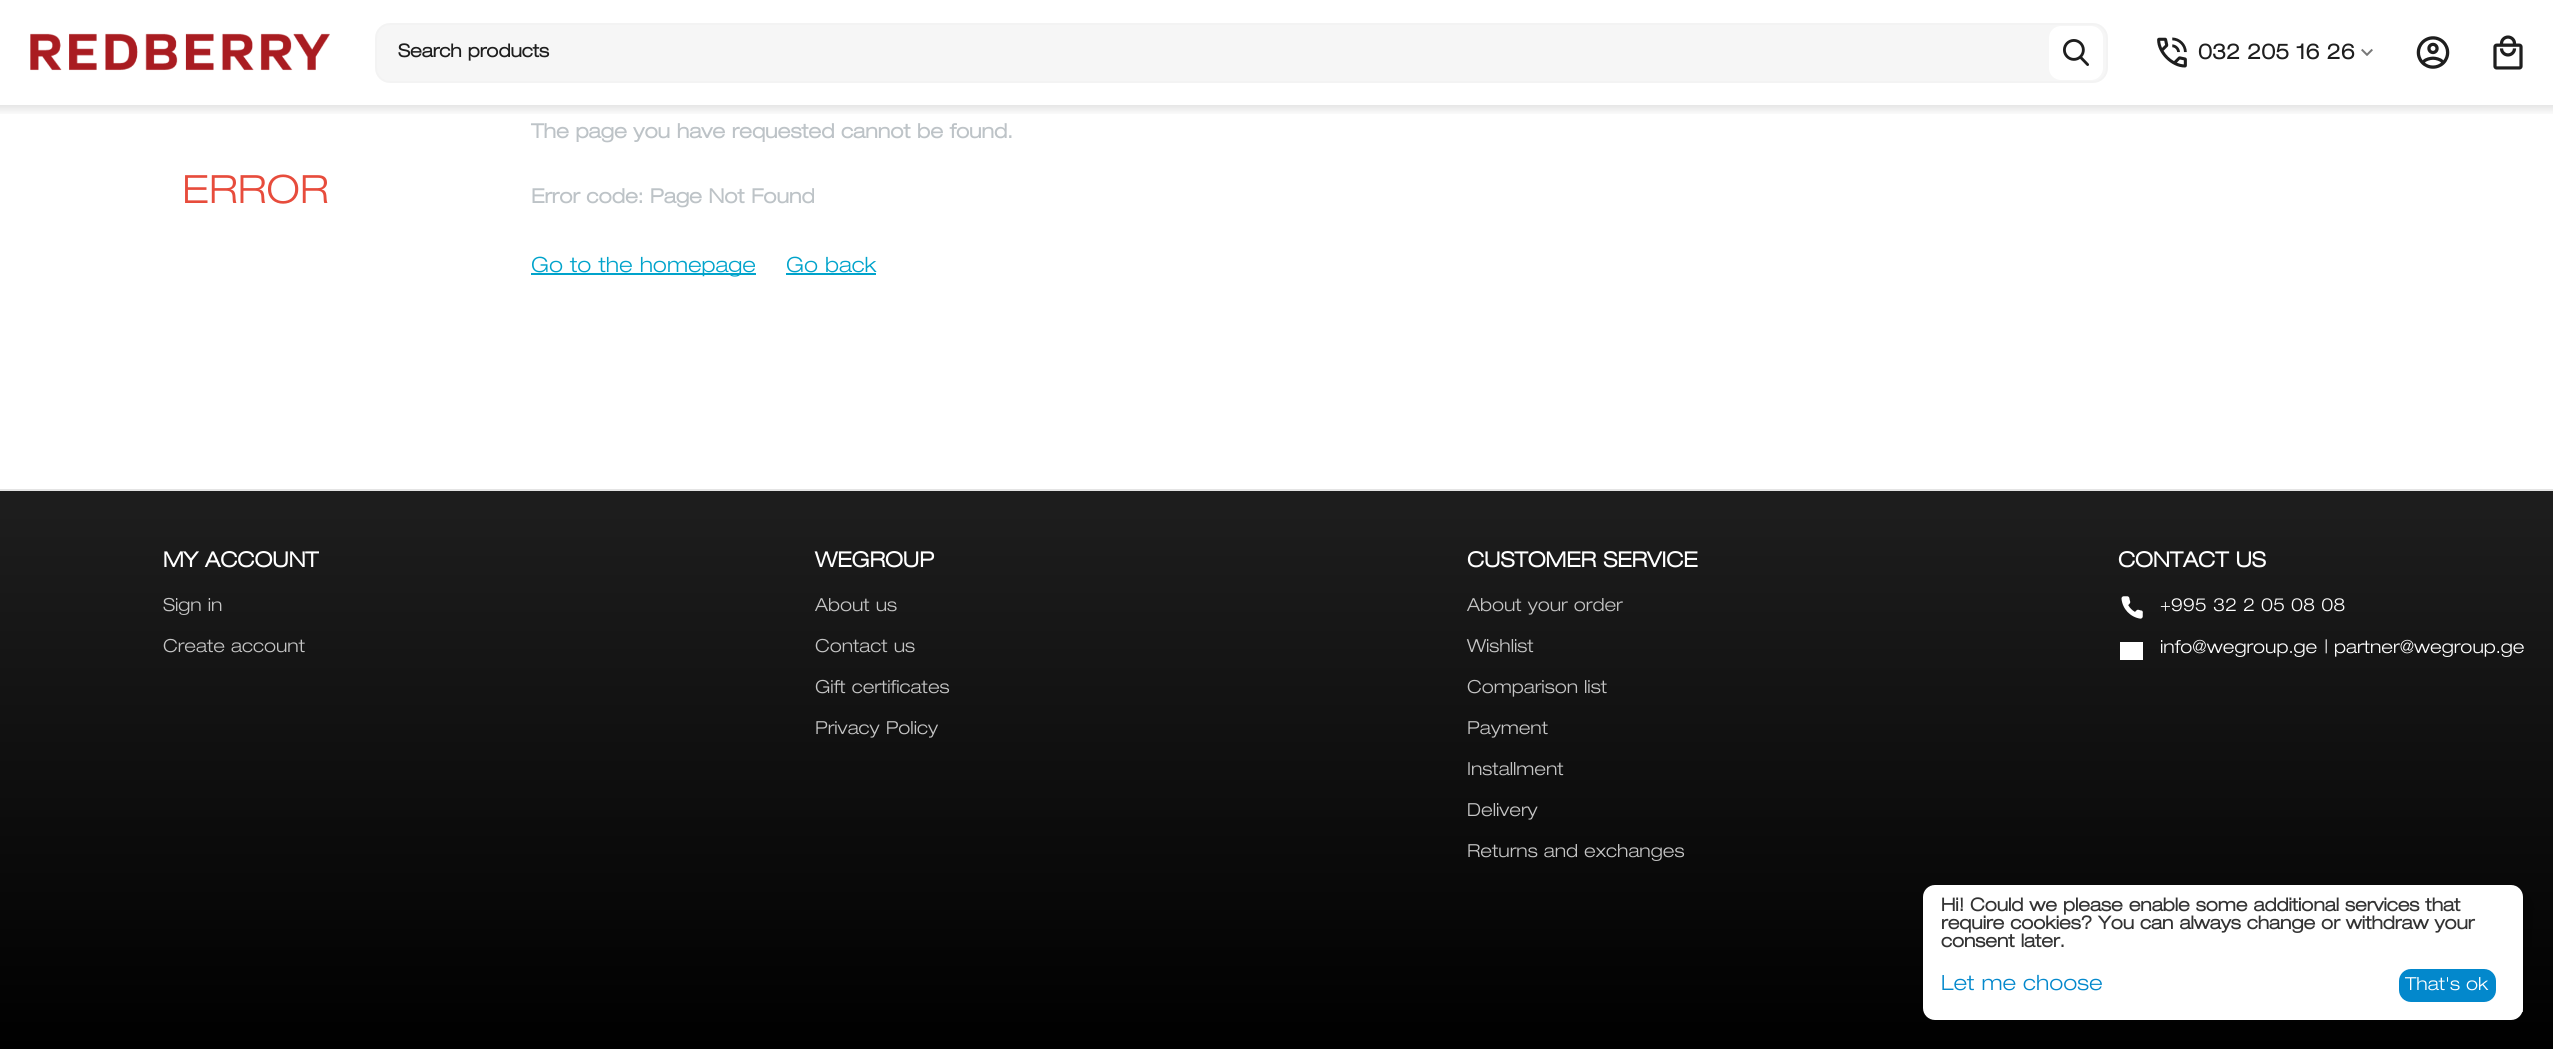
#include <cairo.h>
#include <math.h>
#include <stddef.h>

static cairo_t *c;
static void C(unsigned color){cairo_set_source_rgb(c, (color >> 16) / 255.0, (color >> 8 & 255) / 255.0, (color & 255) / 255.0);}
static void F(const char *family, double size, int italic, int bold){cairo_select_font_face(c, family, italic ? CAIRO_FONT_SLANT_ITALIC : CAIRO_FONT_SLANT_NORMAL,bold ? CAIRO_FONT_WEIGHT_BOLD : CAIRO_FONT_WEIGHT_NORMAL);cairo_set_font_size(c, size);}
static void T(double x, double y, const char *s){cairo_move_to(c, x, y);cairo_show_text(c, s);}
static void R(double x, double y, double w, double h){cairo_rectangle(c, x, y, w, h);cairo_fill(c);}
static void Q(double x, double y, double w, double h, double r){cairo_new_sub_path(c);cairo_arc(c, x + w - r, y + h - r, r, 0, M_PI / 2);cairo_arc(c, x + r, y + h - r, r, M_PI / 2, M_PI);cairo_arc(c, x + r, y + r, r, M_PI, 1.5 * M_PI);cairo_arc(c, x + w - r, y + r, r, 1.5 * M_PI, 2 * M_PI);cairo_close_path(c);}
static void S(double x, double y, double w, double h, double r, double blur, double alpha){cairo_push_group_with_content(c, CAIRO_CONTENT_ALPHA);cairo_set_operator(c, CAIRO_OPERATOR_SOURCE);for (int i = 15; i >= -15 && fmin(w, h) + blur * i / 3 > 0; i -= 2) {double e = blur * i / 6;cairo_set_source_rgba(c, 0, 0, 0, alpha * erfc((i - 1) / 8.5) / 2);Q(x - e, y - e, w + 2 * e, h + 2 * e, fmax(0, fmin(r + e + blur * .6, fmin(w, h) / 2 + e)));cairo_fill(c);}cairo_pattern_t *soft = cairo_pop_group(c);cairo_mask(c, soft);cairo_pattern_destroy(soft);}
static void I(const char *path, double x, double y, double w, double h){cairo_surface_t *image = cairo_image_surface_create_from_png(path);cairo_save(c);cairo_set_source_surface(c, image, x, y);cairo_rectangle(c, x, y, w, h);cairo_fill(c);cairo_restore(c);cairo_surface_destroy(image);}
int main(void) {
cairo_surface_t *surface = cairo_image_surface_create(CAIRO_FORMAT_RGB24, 2565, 1049);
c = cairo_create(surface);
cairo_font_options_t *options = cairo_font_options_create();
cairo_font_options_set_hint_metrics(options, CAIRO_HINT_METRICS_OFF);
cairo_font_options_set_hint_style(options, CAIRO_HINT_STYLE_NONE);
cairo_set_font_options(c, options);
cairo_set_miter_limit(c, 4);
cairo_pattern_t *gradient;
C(0xffffff);
cairo_paint(c);
I("1.png",30,33,300,38);
C(0xf6f6f6);
Q(376,24,1731,58,14);
cairo_fill_preserve(c);
C(0xf3f3f3);
cairo_stroke(c);
F("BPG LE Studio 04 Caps",18,0,1);
C(0x1e1e1e);
T(398,57,"Search products");
C(0xffffff);
Q(2049,26,54,54,12);
cairo_fill(c);
I("2.png",2063,39,26,27);
I("3.png",2157,37,30,31);
F("BPG LE Studio 04 Caps",21,0,1);
C(0x1e1e1e);
T(2198,59,"032 205 16 26");
I("4.png",2361,48,12,8);
I("5.png",2416,36,34,33);
I("6.png",2493,35,30,35);
gradient = cairo_pattern_create_linear(1277,105,1277,116);
cairo_pattern_add_color_stop_rgba(gradient,0,0,0,0,.1);
cairo_pattern_add_color_stop_rgba(gradient,1,0,0,0,0);
cairo_set_source(c,gradient);
cairo_pattern_destroy(gradient);
R(0,105,2553,9);
F("BPG LE Studio 04 Caps Light",39,0,0);
C(0xe74c3c);
T(182,203,"ERROR");
F("BPG LE Studio 04 Caps",19.8,0,1);
C(0xbdc3c7);
T(531,138,"The page you have requested cannot be found.");
T(531,203,"Error code: Page Not Found");
C(0x00a3cb);
R(531,273,225,2);
F("BPG LE Studio 04 Caps Light",21,0,0);
T(531,272,"Go to the homepage");
T(786,272,"Go back");
R(786,273,90,2);
gradient = cairo_pattern_create_linear(1277,489,1277,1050);
cairo_pattern_add_color_stop_rgba(gradient,0,0.118,0.118,0.118,1);
cairo_pattern_add_color_stop_rgba(gradient,1,0,0,0,1);
cairo_set_source(c,gradient);
cairo_pattern_destroy(gradient);
R(0,491,2553,558);
C(0xe4e4e4);
R(0,489,2553,2);
F("BPG LE Studio 04 Caps",21,0,1);
C(0xffffff);
T(163,567,"MY ACCOUNT");
F("BPG LE Studio 04 Caps Light",18,0,0);
C(0xc5c5c5);
T(163,611,"Sign in");
T(163,652,"Create account");
F("BPG LE Studio 04 Caps",21,0,1);
C(0xffffff);
T(815,567,"WEGROUP");
F("BPG LE Studio 04 Caps Light",18,0,0);
C(0xc5c5c5);
T(815,611,"About us");
T(815,652,"Contact us");
T(815,693,"Gift certificates");
T(815,734,"Privacy Policy");
F("BPG LE Studio 04 Caps",21,0,1);
C(0xffffff);
T(1467,567,"CUSTOMER SERVICE");
F("BPG LE Studio 04 Caps Light",18,0,0);
C(0xc5c5c5);
T(1467,611,"About your order");
T(1467,652,"Wishlist");
T(1467,693,"Comparison list");
T(1467,734,"Payment");
T(1467,775,"Installment");
T(1467,816,"Delivery");
T(1467,857,"Returns and exchanges");
F("BPG LE Studio 04 Caps",21,0,1);
C(0xffffff);
T(2118,567,"CONTACT US");
I("7.png",2121,596,22,23);
F("BPG LE Studio 04 Caps Light",18,0,0);
T(2160,611,"+995 32 2 05 08 08");
R(2120,642,23,18);
T(2160,653,"info@wegroup.ge");
F("BPG LE Studio 04 Caps",18,0,1);
C(0xc5c5c5);
T(2324,653,"|");
F("BPG LE Studio 04 Caps Light",18,0,0);
C(0xffffff);
T(2334,653,"partner@wegroup.ge");
I("8.png",2522,1008,1,4);
C(0x000000);
S(1931,893,600,135,12,7.5,.19);
S(1923,891,600,135,12,4.5,.2);
C(0xffffff);
Q(1923,885,600,135,12);
cairo_fill(c);
F("BPG LE Studio 04 Caps",18,0,1);
C(0x333333);
T(1941,911,"Hi! Could we please enable some additional services that");
T(1941,929,"require cookies? You can always change or withdraw your");
T(1941,947,"consent later.");
F("BPG LE Studio 04 Caps Light",21,0,0);
C(0x0388cc);
T(1941,990,"Let me choose");
Q(2399,969,97,33,12);
cairo_fill(c);
F("BPG LE Studio 04 Caps Light",18,0,0);
C(0xffffff);
T(2405,990,"That's ok");
cairo_surface_write_to_png(surface, "o.png");
cairo_font_options_destroy(options);
cairo_destroy(c);
cairo_surface_destroy(surface);
return 0;
}
